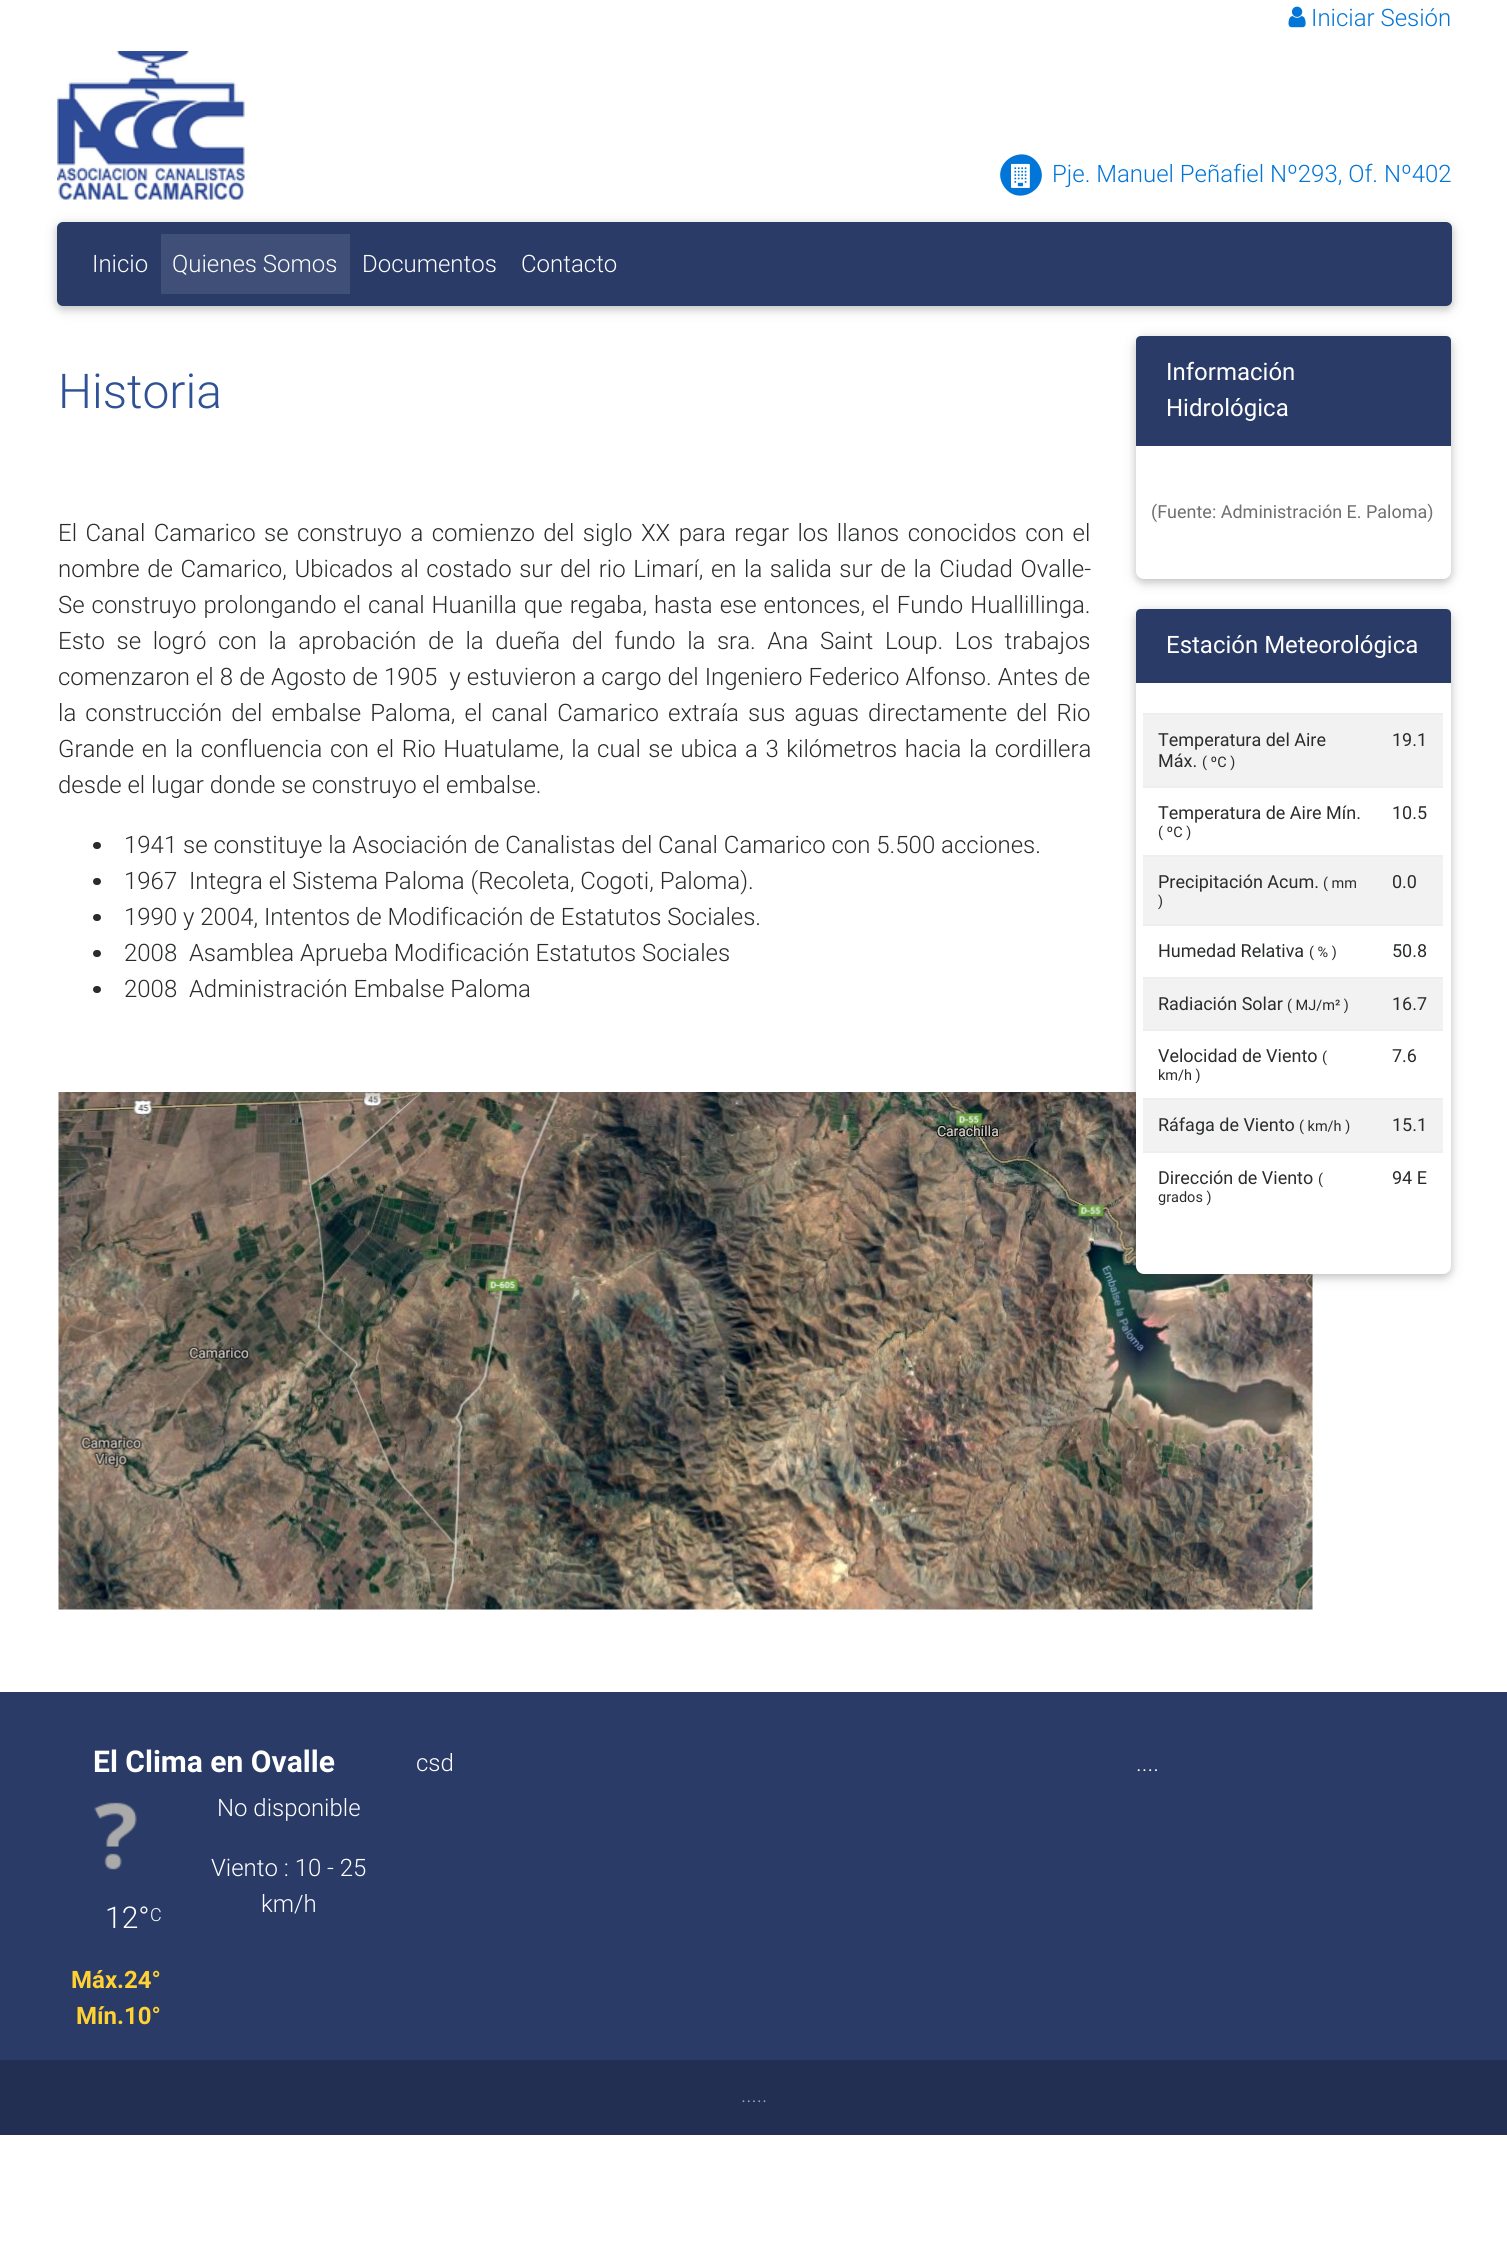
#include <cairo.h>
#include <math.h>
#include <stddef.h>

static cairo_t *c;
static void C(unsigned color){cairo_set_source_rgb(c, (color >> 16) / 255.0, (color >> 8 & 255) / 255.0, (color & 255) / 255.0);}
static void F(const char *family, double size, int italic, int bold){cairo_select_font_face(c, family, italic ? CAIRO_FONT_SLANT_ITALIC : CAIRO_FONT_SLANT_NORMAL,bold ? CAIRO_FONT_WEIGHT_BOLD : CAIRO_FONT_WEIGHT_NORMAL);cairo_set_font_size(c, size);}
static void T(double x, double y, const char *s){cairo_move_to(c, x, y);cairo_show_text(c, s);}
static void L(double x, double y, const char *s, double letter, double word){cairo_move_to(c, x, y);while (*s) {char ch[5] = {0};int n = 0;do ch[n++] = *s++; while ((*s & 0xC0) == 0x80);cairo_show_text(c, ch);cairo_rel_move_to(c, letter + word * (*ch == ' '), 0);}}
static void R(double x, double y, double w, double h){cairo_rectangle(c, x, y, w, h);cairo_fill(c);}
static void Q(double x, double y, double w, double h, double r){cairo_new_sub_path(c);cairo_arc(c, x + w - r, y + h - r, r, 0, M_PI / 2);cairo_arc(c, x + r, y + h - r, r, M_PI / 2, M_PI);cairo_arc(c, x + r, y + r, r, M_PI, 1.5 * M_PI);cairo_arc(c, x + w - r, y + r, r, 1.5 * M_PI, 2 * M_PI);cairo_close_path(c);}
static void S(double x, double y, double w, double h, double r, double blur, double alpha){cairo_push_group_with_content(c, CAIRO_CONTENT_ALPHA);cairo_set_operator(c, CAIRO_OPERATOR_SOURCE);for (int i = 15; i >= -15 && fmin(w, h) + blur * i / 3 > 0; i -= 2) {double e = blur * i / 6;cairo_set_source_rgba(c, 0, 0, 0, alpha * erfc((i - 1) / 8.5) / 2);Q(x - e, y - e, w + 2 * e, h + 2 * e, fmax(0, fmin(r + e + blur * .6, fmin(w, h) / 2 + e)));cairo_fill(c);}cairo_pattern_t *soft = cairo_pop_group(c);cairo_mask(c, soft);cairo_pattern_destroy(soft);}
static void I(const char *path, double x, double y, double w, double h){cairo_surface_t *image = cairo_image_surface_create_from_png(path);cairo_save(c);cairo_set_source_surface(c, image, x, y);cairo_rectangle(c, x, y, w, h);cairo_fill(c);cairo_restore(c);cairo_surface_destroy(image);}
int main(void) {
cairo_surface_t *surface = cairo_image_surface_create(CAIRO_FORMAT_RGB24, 1507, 2263);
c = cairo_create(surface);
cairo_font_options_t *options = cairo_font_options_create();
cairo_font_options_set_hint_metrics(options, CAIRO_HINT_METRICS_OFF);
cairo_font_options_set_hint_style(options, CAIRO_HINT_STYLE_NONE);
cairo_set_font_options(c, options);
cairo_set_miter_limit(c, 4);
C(0xffffff);
cairo_paint(c);
I("1.png",1288,6,18,22);
F("Roboto Light",24,0,0);
C(0x0275d8);
T(1311,26,"Iniciar Sesión");
I("2.png",57,51,188,149);
cairo_new_path(c);
cairo_move_to(c,1039,165);
cairo_curve_to(c,1052,188,1017,209,1003,185);
cairo_curve_to(c,990,162,1025,141,1039,165);
cairo_close_path(c);
cairo_fill(c);
I("3.png",1011,163,19,25);
T(1052,182,"Pje. Manuel Peñafiel Nº293, Of. Nº402");
C(0x000000);
S(57,225,1395,84,6,7.5,.12);
S(57,225,1395,84,6,4,.16);
C(0x2b3b68);
Q(57,222,1395,84,6);
cairo_fill(c);
C(0xffffff);
T(92,272,"Inicio");
C(0x404f77);
R(161,234,189,60);
C(0xffffff);
T(172,272,"Quienes Somos");
T(362,272,"Documentos");
T(521,272,"Contacto");
F("Roboto Light",48,0,0);
C(0x2f5195);
T(58,408,"Historia");
F("Roboto Light",24,0,0);
C(0x292b2c);
L(58,541,"El Canal Camarico se construyo a comienzo del siglo XX para regar los llanos conocidos con el",0,2.6);
L(58,577,"nombre de Camarico, Ubicados al costado sur del rio Limarí, en la salida sur de la Ciudad Ovalle-",0,1.7);
L(58,613,"Se construyo prolongando el canal Huanilla que regaba, hasta ese entonces, el Fundo Huallillinga.",0,1.1);
L(58,649,"Esto se logró con la aprobación de la dueña del fundo la sra. Ana Saint Loup. Los trabajos",0,5.75);
L(58,685,"comenzaron el 8 de Agosto de 1905  y estuvieron a cargo del Ingeniero Federico Alfonso. Antes de",0,.25);
L(58,721,"la construcción del embalse Paloma, el canal Camarico extraía sus aguas directamente del Rio",0,3.25);
L(58,757,"Grande en la confluencia con el Rio Huatulame, la cual se ubica a 3 kilómetros hacia la cordillera",0,1.7);
T(58,793,"desde el lugar donde se construyo el embalse.");
Q(93,842,8,7,3.5);
cairo_fill(c);
T(124,853,"1941 se constituye la Asociación de Canalistas del Canal Camarico con 5.500 acciones.");
Q(93,878,8,7,3.5);
cairo_fill(c);
T(124,889,"1967  Integra el Sistema Paloma (Recoleta, Cogoti, Paloma).");
Q(93,914,8,7,3.5);
cairo_fill(c);
T(124,925,"1990 y 2004, Intentos de Modificación de Estatutos Sociales.");
Q(93,950,8,7,3.5);
cairo_fill(c);
T(124,961,"2008  Asamblea Aprueba Modificación Estatutos Sociales");
Q(93,986,8,7,3.5);
cairo_fill(c);
T(124,997,"2008  Administración Embalse Paloma");
I("4.png",58,1092,1255,518);
C(0x000000);
S(1136,339,315,243,8,7.5,.12);
S(1136,339,315,243,8,4,.16);
C(0xffffff);
Q(1136,336,315,243,8);
cairo_fill(c);
C(0x2b3b68);
cairo_new_path(c);
cairo_move_to(c,1141,336);
cairo_line_to(c,1446,336);
cairo_curve_to(c,1449,336,1451,338,1451,341);
cairo_line_to(c,1451,446);
cairo_line_to(c,1136,446);
cairo_line_to(c,1136,341);
cairo_curve_to(c,1136,338,1138,336,1141,336);
cairo_close_path(c);
cairo_fill(c);
F("Roboto",24,0,0);
C(0xffffff);
T(1166,380,"Información");
T(1166,416,"Hidrológica");
F("Roboto",18,0,0);
C(0x6f6f6f);
T(1151,518,"(Fuente: Administración E. Paloma)");
C(0x000000);
S(1136,612,315,665,8,7.5,.12);
S(1136,612,315,665,8,4,.16);
C(0xffffff);
Q(1136,609,315,665,8);
cairo_fill(c);
C(0x2b3b68);
cairo_new_path(c);
cairo_move_to(c,1141,609);
cairo_line_to(c,1446,609);
cairo_curve_to(c,1449,609,1451,611,1451,614);
cairo_line_to(c,1451,683);
cairo_line_to(c,1136,683);
cairo_line_to(c,1136,614);
cairo_curve_to(c,1136,611,1138,609,1141,609);
cairo_close_path(c);
cairo_fill(c);
F("Roboto",24,0,0);
C(0xffffff);
T(1166,653,"Estación Meteorológica");
C(0xf2f2f2);
R(1143,715,300,71);
F("Roboto",18,0,0);
C(0x292b2c);
T(1158,746,"Temperatura del Aire");
T(1158,767,"Máx.");
F("Roboto",14.5,0,0);
T(1202,767,"( ºC )");
C(0xeceeef);
R(1143,713,300,2);
F("Roboto",18,0,0);
C(0x292b2c);
T(1392,746,"19.1");
T(1158,819,"Temperatura de Aire Mín.");
F("Roboto",14.5,0,0);
T(1158,837,"( ºC )");
C(0xeceeef);
R(1143,786,300,2);
F("Roboto",18,0,0);
C(0x292b2c);
T(1392,819,"10.5");
C(0xf2f2f2);
R(1143,857,300,67);
C(0x292b2c);
T(1158,888,"Precipitación Acum.");
F("Roboto",14.5,0,0);
T(1323,888,"( mm");
T(1158,906,")");
C(0xeceeef);
R(1143,855,300,2);
F("Roboto",18,0,0);
C(0x292b2c);
T(1392,888,"0.0");
T(1158,957,"Humedad Relativa");
F("Roboto",14.5,0,0);
T(1309,957,"( % )");
C(0xeceeef);
R(1143,924,300,2);
F("Roboto",18,0,0);
C(0x292b2c);
T(1392,957,"50.8");
C(0xf2f2f2);
R(1143,979,300,50);
C(0x292b2c);
T(1158,1010,"Radiación Solar");
F("Roboto",14.5,0,0);
T(1287,1010,"( MJ/m² )");
C(0xeceeef);
R(1143,977,300,2);
F("Roboto",18,0,0);
C(0x292b2c);
T(1392,1010,"16.7");
T(1158,1062,"Velocidad de Viento");
F("Roboto",14.5,0,0);
T(1322,1062,"(");
T(1158,1080,"km/h )");
C(0xeceeef);
R(1143,1029,300,2);
F("Roboto",18,0,0);
C(0x292b2c);
T(1392,1062,"7.6");
C(0xf2f2f2);
R(1143,1100,300,51);
C(0x292b2c);
T(1158,1131,"Ráfaga de Viento");
F("Roboto",14.5,0,0);
T(1299,1131,"( km/h )");
C(0xeceeef);
R(1143,1098,300,2);
F("Roboto",18,0,0);
C(0x292b2c);
T(1392,1131,"15.1");
T(1158,1184,"Dirección de Viento");
F("Roboto",14.5,0,0);
T(1318,1184,"(");
T(1158,1202,"grados )");
C(0xeceeef);
R(1143,1151,300,2);
F("Roboto",18,0,0);
C(0x292b2c);
T(1392,1184,"94 E");
C(0x2b3b68);
R(0,1692,1507,368);
F("Roboto",30,0,1);
C(0xffffff);
T(93,1772,"El Clima en Ovalle");
F("Roboto Light",24,0,0);
T(217,1816,"No disponible");
T(211,1876,"Viento : 10 - 25");
T(261,1912,"km/h");
I("5.png",94,1802,43,68);
F("Roboto Light",30,0,0);
T(105,1928,"12°");
F("Roboto Light",18,0,0);
T(150,1921,"C");
F("Roboto",24,0,1);
C(0xffd231);
T(71,1988,"Máx.24°");
T(76,2024,"Mín.10°");
F("Roboto Light",24,0,0);
C(0xffffff);
T(416,1771,"csd");
T(1136,1771,"....");
C(0x222f53);
R(0,2060,1507,75);
F("Roboto Light",22,0,0);
C(0xa7acba);
T(741,2102,".....");
cairo_surface_write_to_png(surface, "o.png");
cairo_font_options_destroy(options);
cairo_destroy(c);
cairo_surface_destroy(surface);
return 0;
}
